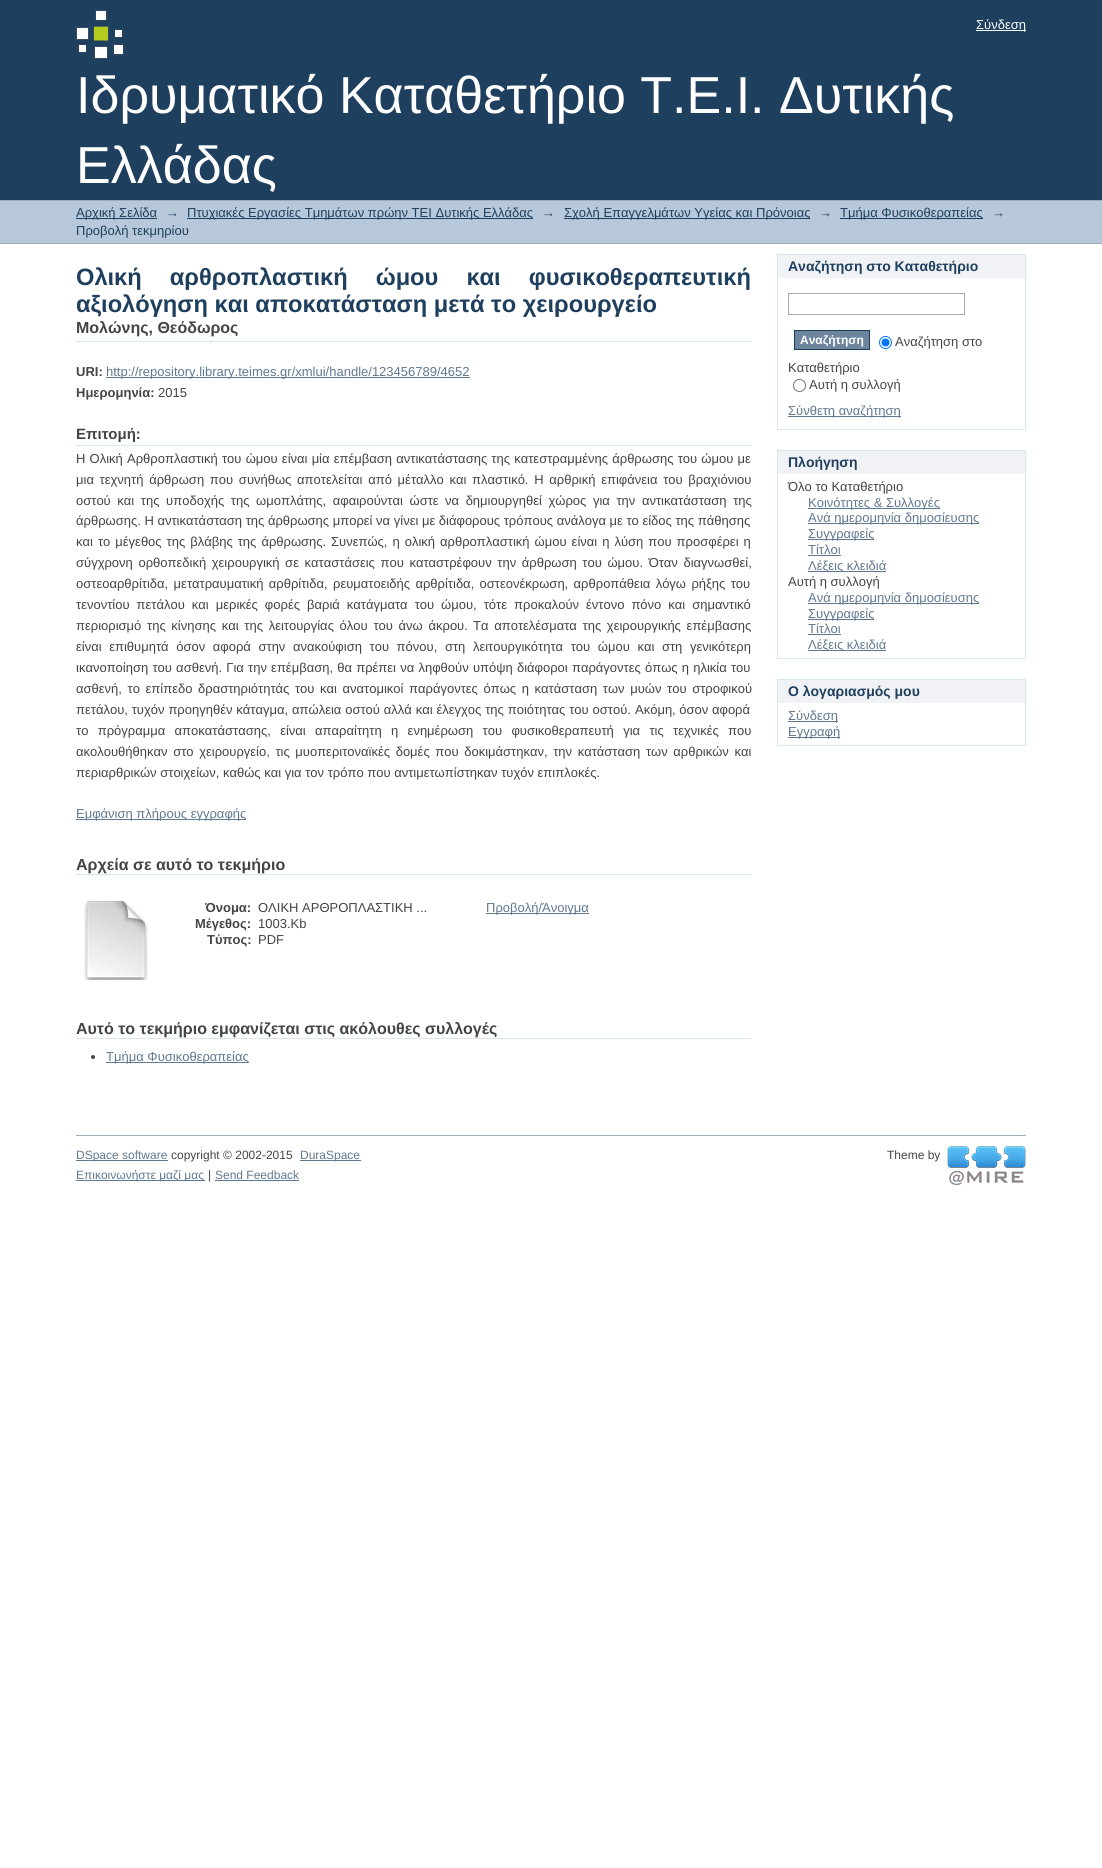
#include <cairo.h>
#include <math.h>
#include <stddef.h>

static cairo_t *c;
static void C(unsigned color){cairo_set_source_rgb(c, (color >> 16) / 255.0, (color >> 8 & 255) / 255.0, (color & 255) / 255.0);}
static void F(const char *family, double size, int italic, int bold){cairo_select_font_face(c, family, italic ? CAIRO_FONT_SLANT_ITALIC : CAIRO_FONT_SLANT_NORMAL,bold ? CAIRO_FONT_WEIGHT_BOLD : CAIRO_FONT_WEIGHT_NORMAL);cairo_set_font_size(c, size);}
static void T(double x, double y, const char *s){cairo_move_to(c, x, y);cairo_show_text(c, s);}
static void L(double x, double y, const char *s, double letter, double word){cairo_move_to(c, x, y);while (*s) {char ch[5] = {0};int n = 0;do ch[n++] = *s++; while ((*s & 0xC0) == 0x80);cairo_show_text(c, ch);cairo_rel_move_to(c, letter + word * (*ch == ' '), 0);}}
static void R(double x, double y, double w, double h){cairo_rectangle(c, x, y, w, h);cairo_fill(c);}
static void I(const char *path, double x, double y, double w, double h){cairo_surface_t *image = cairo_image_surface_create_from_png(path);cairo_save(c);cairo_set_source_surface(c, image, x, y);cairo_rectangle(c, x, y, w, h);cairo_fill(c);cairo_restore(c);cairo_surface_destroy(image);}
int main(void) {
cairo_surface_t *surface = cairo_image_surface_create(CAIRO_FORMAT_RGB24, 1102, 1868);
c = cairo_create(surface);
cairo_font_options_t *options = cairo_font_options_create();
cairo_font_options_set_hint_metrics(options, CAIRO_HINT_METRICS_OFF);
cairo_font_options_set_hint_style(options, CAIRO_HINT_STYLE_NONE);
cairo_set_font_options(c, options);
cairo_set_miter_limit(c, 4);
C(0xffffff);
cairo_paint(c);
C(0x1f3f5e);
R(0,0,1102,200);
C(0xffffff);
R(976,30,50,1);
F("Liberation Sans",13,0,0);
T(976,29,"Σύνδεση");
I("1.png",76,10,48,49);
F("Liberation Sans",52,0,0);
T(76,113,"Ιδρυματικό Καταθετήριο Τ.Ε.Ι. Δυτικής");
T(76,183,"Ελλάδας");
C(0xb6c8d9);
R(0,201,1102,42);
C(0x9cacba);
R(0,200,1102,1);
R(0,243,1102,1);
C(0x1f3f5e);
R(76,218,81,1);
F("Liberation Sans",13,0,0);
T(76,217,"Αρχική Σελίδα");
T(166,217,"→");
R(187,218,346,1);
T(187,217,"Πτυχιακές Εργασίες Τμημάτων πρώην ΤΕΙ Δυτικής Ελλάδας");
T(542,217,"→");
R(564,218,246,1);
T(564,217,"Σχολή Επαγγελμάτων Υγείας και Πρόνοιας");
T(819,217,"→");
R(840,218,143,1);
T(840,217,"Τμήμα Φυσικοθεραπείας");
T(992,217,"→");
T(76,235,"Προβολή τεκμηρίου");
F("Liberation Sans",23.65,0,1);
L(76,285,"Ολική αρθροπλαστική ώμου και φυσικοθεραπευτική",0,21.5);
T(76,312,"αξιολόγηση και αποκατάσταση μετά το χειρουργείο");
C(0xd8e8eb);
R(76,341,675,1);
F("Liberation Sans",16,0,1);
C(0x444444);
T(76,333,"Μολώνης, Θεόδωρος");
F("Liberation Sans",13,0,1);
T(76,376,"URI:");
C(0x607890);
R(106,377,364,1);
F("Liberation Sans",13,0,0);
T(106,376,"http://repository.library.teimes.gr/xmlui/handle/123456789/4652");
F("Liberation Sans",13,0,1);
C(0x444444);
T(76,397,"Ημερομηνία:");
F("Liberation Sans",13,0,0);
T(158,397,"2015");
C(0xd8e8eb);
R(76,445,675,1);
F("Liberation Sans",15,0,1);
C(0x444444);
T(76,439,"Επιτομή:");
F("Liberation Sans",13,0,0);
L(76,463,"Η Ολική Αρθροπλαστική του ώμου είναι μία επέμβαση αντικατάστασης της κατεστραμμένης άρθρωσης του ώμου με",0,.6);
L(76,484,"μια τεχνητή άρθρωση που συνήθως αποτελείται από μέταλλο και πλαστικό. Η αρθρική επιφάνεια του βραχιόνιου",0,2.1);
L(76,505,"οστού και της υποδοχής της ωμοπλάτης, αφαιρούνται ώστε",0,3);
L(445,505,"να δημιουργηθεί χώρος για την αντικατάσταση της",0,3);
T(76,525,"άρθρωσης. Η αντικατάσταση της άρθρωσης μπορεί να γίνει με διάφορους τρόπους ανάλογα με το είδος της πάθησης");
L(76,546,"και το μέγεθος της βλάβης της άρθρωσης.",0,1.4);
L(331,546,"Συνεπώς, η ολική αρθροπλαστική ώμου είναι η λύση που προσφέρει η",0,1.4);
L(76,567,"σύγχρονη ορθοπεδική χειρουργική σε καταστάσεις που καταστρέφουν την άρθρωση του ώμου. Όταν διαγνωσθεί,",0,2);
L(76,588,"οστεοαρθρίτιδα, μετατραυματική αρθρίτιδα, ρευματοειδής αρθρίτιδα, οστεονέκρωση, αρθροπάθεια λόγω ρήξης του",0,1.75);
L(76,609,"τενοντίου πετάλου και μερικές φορές βαριά κατάγματα του ώμου, τότε προκαλούν έντονο πόνο και σημαντικό",0,3.4);
L(76,630,"περιορισμό της κίνησης και της λειτουργίας όλου του άνω άκρου.",0,2.1);
L(473,630,"Τα αποτελέσματα της χειρουργικής επέμβασης",0,2.1);
L(76,651,"είναι επιθυμητά όσον αφορά στην ανακούφιση του πόνου, στη λειτουργικότητα του ώμου και στη γενικότερη",0,4);
L(76,672,"ικανοποίηση του ασθενή. Για την επέμβαση, θα πρέπει να ληφθούν υπόψη διάφοροι παράγοντες όπως η ηλικία του",0,.6);
L(76,693,"ασθενή, το επίπεδο δραστηριότητάς του και ανατομικοί παράγοντες όπως η κατάσταση των μυών του στροφικού",0,2);
L(76,714,"πετάλου, τυχόν προηγηθέν κάταγμα, απώλεια οστού αλλά και έλεγχος της ποιότητας του οστού.",0,.25);
T(635,714,"Ακόμη, όσον αφορά");
L(76,735,"το πρόγραμμα αποκατάστασης, είναι απαραίτητη η ενημέρωση του φυσικοθεραπευτή για τις τεχνικές που",0,5.75);
L(76,756,"ακολουθήθηκαν στο χειρουργείο, τις μυοπεριτοναϊκές δομές που δοκιμάστηκαν, την κατάσταση των αρθρικών και",0,2);
T(76,777,"περιαρθρικών στοιχείων, καθώς και για τον τρόπο που αντιμετωπίστηκαν τυχόν επιπλοκές.");
C(0x607890);
R(76,819,170,1);
T(76,818,"Εμφάνιση πλήρους εγγραφής");
C(0xd8e8eb);
R(76,874,675,1);
F("Liberation Sans",16,0,1);
C(0x444444);
T(76,870,"Αρχεία σε αυτό το τεκμήριο");
I("2.png",84,901,64,79);
F("Liberation Sans",13,0,1);
T(205,912,"Όνομα:");
F("Liberation Sans",13,0,0);
T(258,912,"ΟΛΙΚΗ ΑΡΘΡΟΠΛΑΣΤΙΚΗ ...");
F("Liberation Sans",13,0,1);
T(195,928,"Μέγεθος:");
F("Liberation Sans",13,0,0);
T(258,928,"1003.Kb");
F("Liberation Sans",13,0,1);
T(207,944,"Τύπος:");
F("Liberation Sans",13,0,0);
T(258,944,"PDF");
C(0x607890);
R(486,913,56,1);
T(486,912,"Προβολή/");
R(542,913,47,1);
T(542,912,"Άνοιγμα");
C(0xd8e8eb);
R(76,1038,675,1);
F("Liberation Sans",16,0,1);
C(0x444444);
T(76,1034,"Αυτό το τεκμήριο εμφανίζεται στις ακόλουθες συλλογές");
cairo_new_path(c);
cairo_arc(c,93,1057,2,0,2 * M_PI);
cairo_fill(c);
C(0x607890);
R(106,1062,143,1);
F("Liberation Sans",13,0,0);
T(106,1061,"Τμήμα Φυσικοθεραπείας");
C(0xf0f2f5);
R(778,255,247,23);
C(0xd8e8eb);
R(777,254,249,1);
R(1025,254,1,176);
R(777,254,1,24);
F("Liberation Sans",14,0,1);
C(0x1f3f5e);
T(788,271,"Αναζήτηση στο Καταθετήριο");
C(0xd8e8eb);
R(777,429,249,1);
R(777,278,1,152);
cairo_rectangle(c,788.5,293.5,176,21);
C(0xaaaaaa);
cairo_set_line_width(c,1);
cairo_stroke(c);
C(0x6d859c);
cairo_rectangle(c,794.5,330.5,75,19);
cairo_fill_preserve(c);
C(0x1f3f5e);
cairo_stroke(c);
F("Liberation Sans",12,0,1);
C(0xffffff);
T(800,344,"Αναζήτηση");
cairo_new_path(c);
cairo_arc(c,885.5,342.5,6,0,2 * M_PI);
C(0x0075ff);
cairo_stroke(c);
cairo_arc(c,885.5,342.5,4,0,2 * M_PI);
cairo_fill(c);
F("Liberation Sans",13,0,0);
C(0x444444);
T(895,346,"Αναζήτηση στο");
T(788,372,"Καταθετήριο");
cairo_new_path(c);
cairo_arc(c,799.5,385.5,6,0,2 * M_PI);
C(0x767676);
cairo_stroke(c);
C(0x444444);
T(809,389,"Αυτή η συλλογή");
C(0x607890);
R(788,416,113,1);
T(788,415,"Σύνθετη αναζήτηση");
C(0xf0f2f5);
R(778,451,247,23);
C(0xd8e8eb);
R(777,450,249,1);
R(1025,450,1,209);
R(777,450,1,24);
F("Liberation Sans",14,0,1);
C(0x1f3f5e);
T(788,467,"Πλοήγηση");
C(0xd8e8eb);
R(777,658,249,1);
R(777,474,1,185);
F("Liberation Sans",13,0,0);
C(0x444444);
T(788,491,"Όλο το Καταθετήριο");
C(0x607890);
R(808,508,132,1);
T(808,507,"Κοινότητες & Συλλογές");
R(808,523,171,1);
T(808,522,"Ανά ημερομηνία δημοσίευσης");
R(808,539,66,1);
T(808,538,"Συγγραφείς");
T(808,554,"Τίτλοι");
R(808,555,33,1);
R(808,571,78,1);
T(808,570,"Λέξεις κλειδιά");
C(0x444444);
T(788,586,"Αυτή η συλλογή");
C(0x607890);
R(808,603,171,1);
T(808,602,"Ανά ημερομηνία δημοσίευσης");
R(808,619,66,1);
T(808,618,"Συγγραφείς");
T(808,633,"Τίτλοι");
R(808,634,33,1);
R(808,650,78,1);
T(808,649,"Λέξεις κλειδιά");
C(0xf0f2f5);
R(778,680,247,23);
C(0xd8e8eb);
R(777,679,249,1);
R(1025,679,1,67);
R(777,679,1,24);
F("Liberation Sans",14,0,1);
C(0x1f3f5e);
T(788,696,"Ο λογαριασμός μου");
C(0xd8e8eb);
R(777,745,249,1);
R(777,703,1,43);
C(0x607890);
R(788,721,50,1);
F("Liberation Sans",13,0,0);
T(788,720,"Σύνδεση");
R(788,737,52,1);
T(788,736,"Εγγραφή");
C(0x9cacba);
R(76,1135,950,1);
C(0x607890);
R(76,1160,92,1);
F("Liberation Sans",12,0,0);
T(76,1159,"DSpace software");
C(0x444444);
T(171,1159,"copyright © 2002-2015");
C(0x607890);
R(300,1160,61,1);
T(300,1159,"DuraSpace");
C(0x444444);
T(887,1159,"Theme by");
I("3.png",947,1146,79,40);
C(0x607890);
R(76,1180,129,1);
T(76,1179,"Επικοινωνήστε μαζί μας");
C(0x444444);
T(208,1179,"|");
C(0x607890);
T(215,1179,"Send Feedback");
R(215,1180,84,1);
cairo_surface_write_to_png(surface, "o.png");
cairo_font_options_destroy(options);
cairo_destroy(c);
cairo_surface_destroy(surface);
return 0;
}
